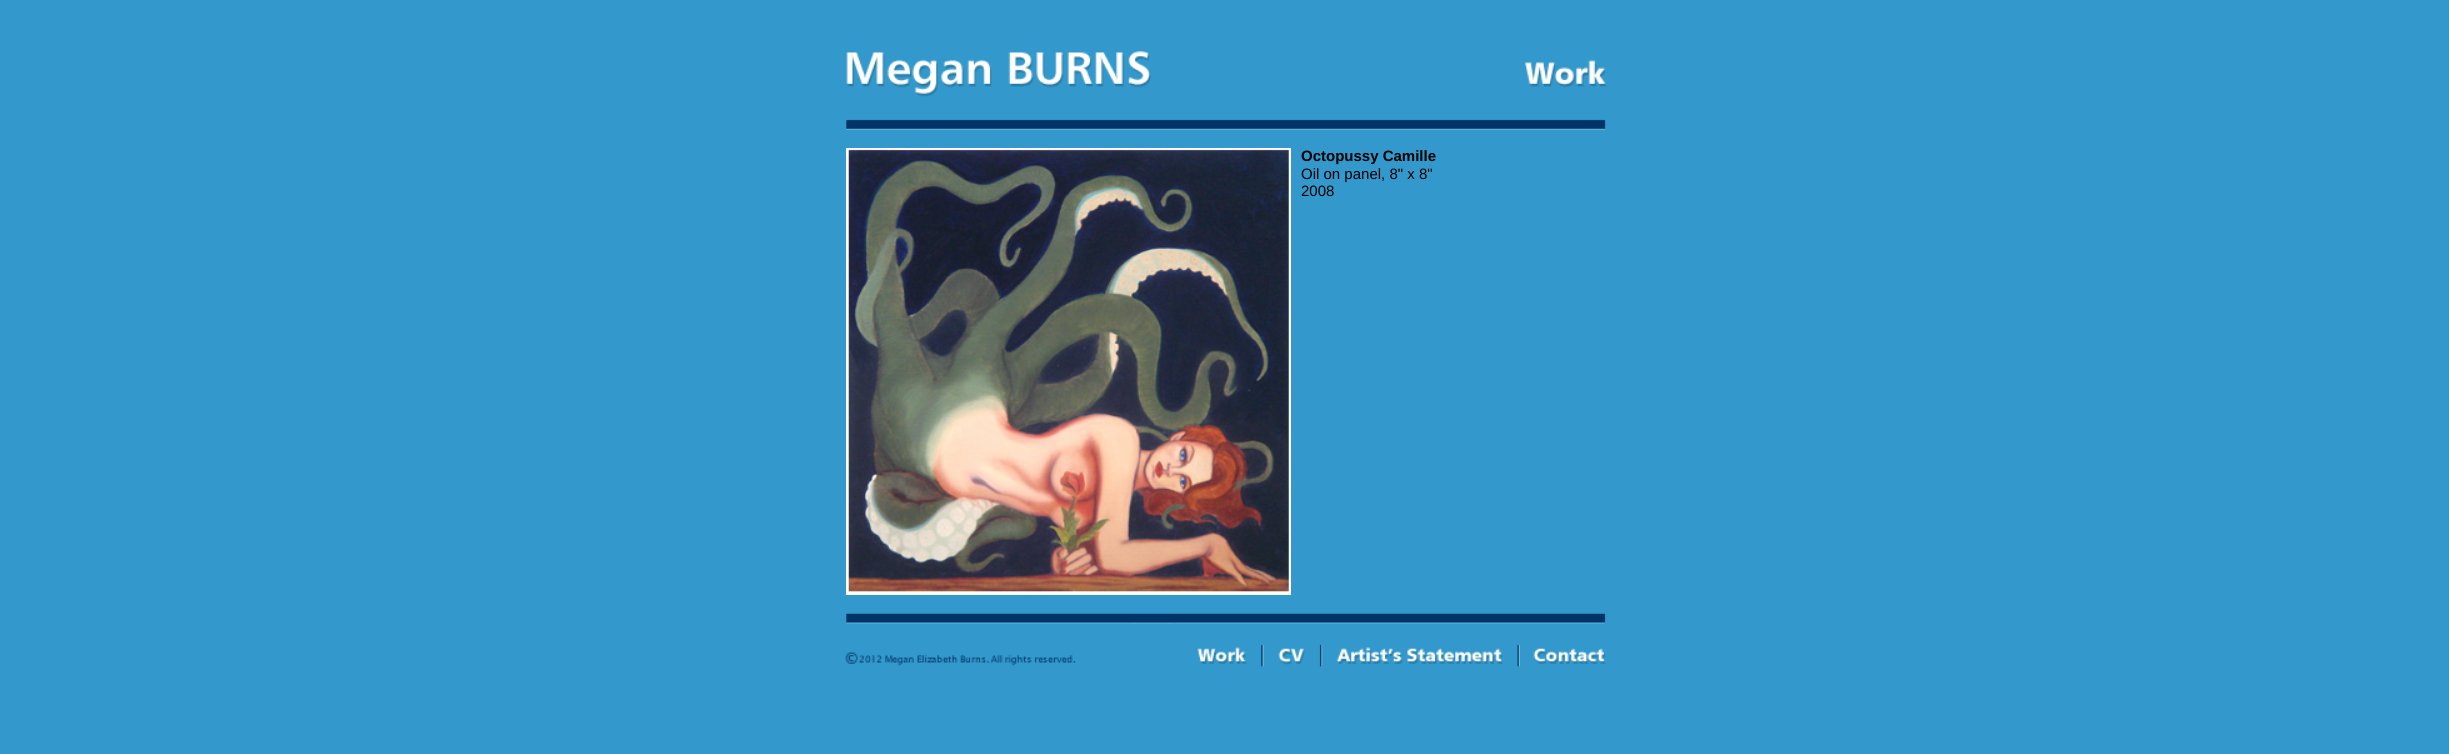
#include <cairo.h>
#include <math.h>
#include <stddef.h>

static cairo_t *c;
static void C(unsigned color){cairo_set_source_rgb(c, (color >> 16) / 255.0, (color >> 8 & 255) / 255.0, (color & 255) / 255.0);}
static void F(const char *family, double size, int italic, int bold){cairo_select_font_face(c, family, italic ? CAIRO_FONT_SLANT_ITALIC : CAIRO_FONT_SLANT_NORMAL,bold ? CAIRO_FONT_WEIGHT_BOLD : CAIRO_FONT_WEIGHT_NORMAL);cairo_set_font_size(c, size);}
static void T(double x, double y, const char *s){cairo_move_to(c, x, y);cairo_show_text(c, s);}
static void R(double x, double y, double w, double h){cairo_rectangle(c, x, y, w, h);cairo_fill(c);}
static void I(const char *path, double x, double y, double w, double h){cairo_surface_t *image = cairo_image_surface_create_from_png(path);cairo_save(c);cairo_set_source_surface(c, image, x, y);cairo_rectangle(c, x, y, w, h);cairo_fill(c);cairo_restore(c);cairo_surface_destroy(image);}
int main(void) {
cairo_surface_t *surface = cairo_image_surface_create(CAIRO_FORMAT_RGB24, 2449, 754);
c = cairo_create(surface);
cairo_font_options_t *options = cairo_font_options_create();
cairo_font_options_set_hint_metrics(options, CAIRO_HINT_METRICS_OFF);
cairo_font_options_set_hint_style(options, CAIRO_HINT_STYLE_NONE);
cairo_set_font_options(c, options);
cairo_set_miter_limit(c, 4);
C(0x3399cc);
cairo_paint(c);
I("1.png",846,51,761,79);
C(0xffffff);
R(846,148,445,447);
I("2.png",847,149,443,444);
F("Liberation Sans",15,0,1);
C(0x000000);
T(1301,161,"Octopussy Camille");
F("Liberation Sans",15,0,0);
T(1301,179,"Oil on panel, 8\" x 8\"");
T(1301,196,"2008");
I("3.png",846,613,760,11);
I("4.png",845,623,285,43);
I("5.png",1172,623,94,44);
I("6.png",1266,623,57,44);
I("7.png",1322,623,198,44);
I("8.png",1520,623,86,41);
cairo_surface_write_to_png(surface, "o.png");
cairo_font_options_destroy(options);
cairo_destroy(c);
cairo_surface_destroy(surface);
return 0;
}
